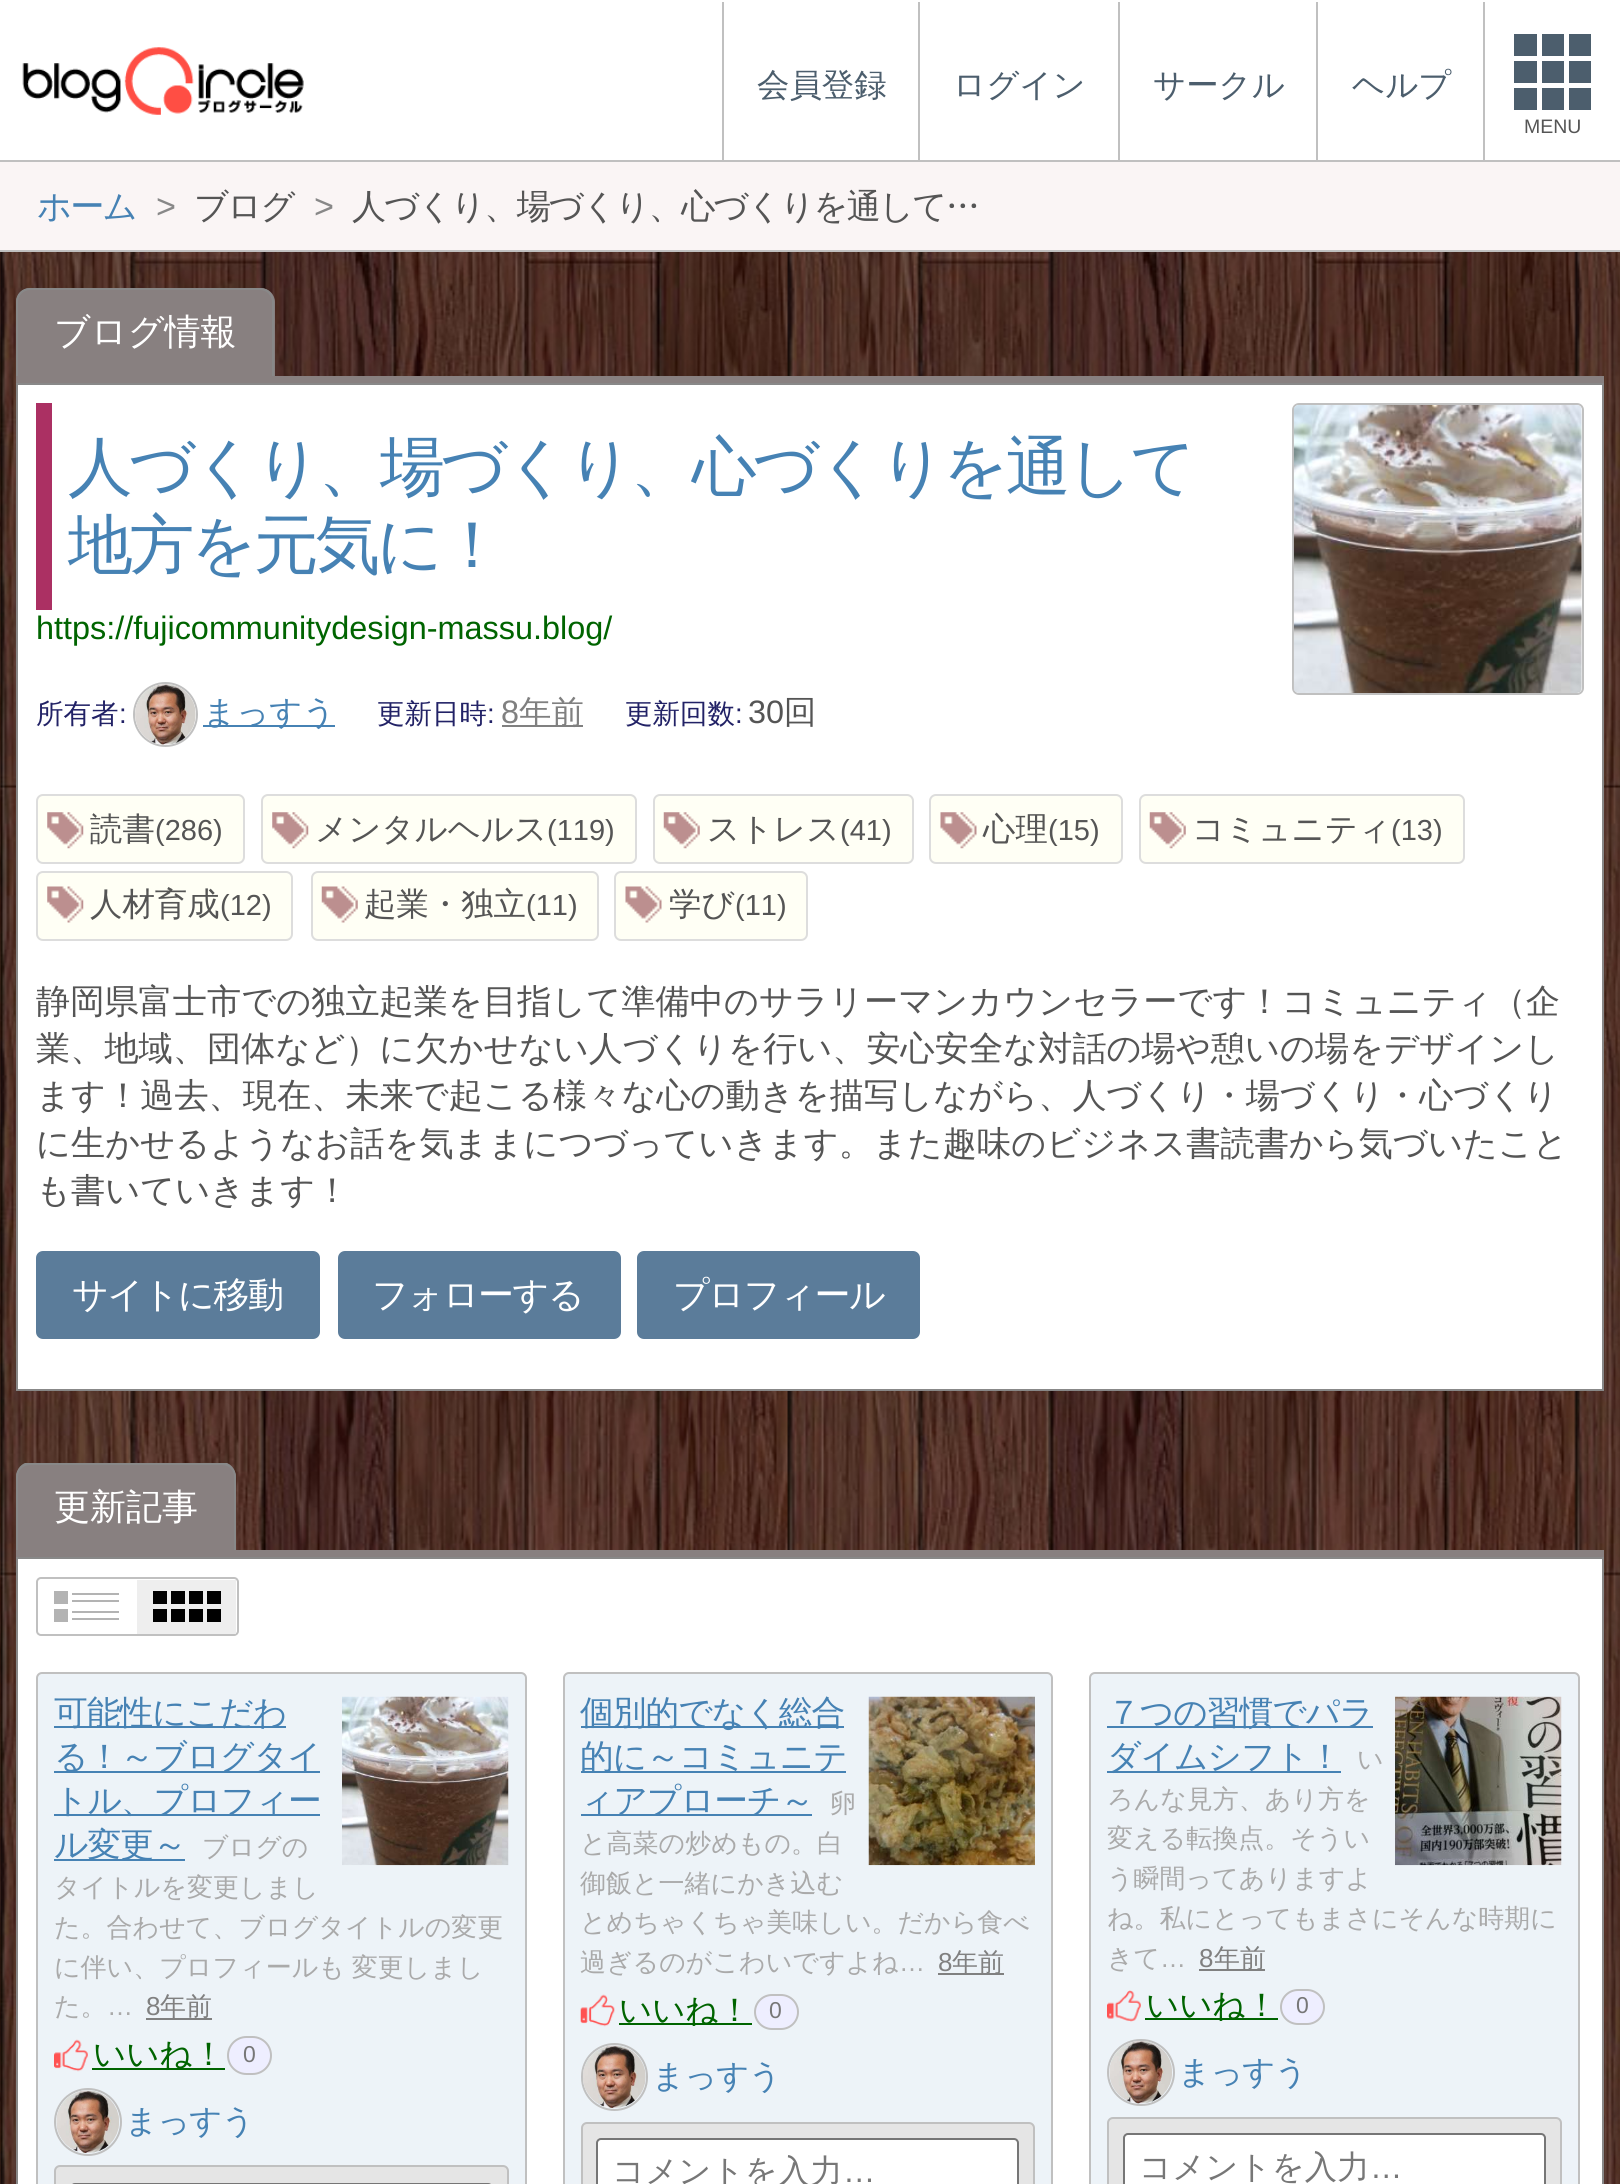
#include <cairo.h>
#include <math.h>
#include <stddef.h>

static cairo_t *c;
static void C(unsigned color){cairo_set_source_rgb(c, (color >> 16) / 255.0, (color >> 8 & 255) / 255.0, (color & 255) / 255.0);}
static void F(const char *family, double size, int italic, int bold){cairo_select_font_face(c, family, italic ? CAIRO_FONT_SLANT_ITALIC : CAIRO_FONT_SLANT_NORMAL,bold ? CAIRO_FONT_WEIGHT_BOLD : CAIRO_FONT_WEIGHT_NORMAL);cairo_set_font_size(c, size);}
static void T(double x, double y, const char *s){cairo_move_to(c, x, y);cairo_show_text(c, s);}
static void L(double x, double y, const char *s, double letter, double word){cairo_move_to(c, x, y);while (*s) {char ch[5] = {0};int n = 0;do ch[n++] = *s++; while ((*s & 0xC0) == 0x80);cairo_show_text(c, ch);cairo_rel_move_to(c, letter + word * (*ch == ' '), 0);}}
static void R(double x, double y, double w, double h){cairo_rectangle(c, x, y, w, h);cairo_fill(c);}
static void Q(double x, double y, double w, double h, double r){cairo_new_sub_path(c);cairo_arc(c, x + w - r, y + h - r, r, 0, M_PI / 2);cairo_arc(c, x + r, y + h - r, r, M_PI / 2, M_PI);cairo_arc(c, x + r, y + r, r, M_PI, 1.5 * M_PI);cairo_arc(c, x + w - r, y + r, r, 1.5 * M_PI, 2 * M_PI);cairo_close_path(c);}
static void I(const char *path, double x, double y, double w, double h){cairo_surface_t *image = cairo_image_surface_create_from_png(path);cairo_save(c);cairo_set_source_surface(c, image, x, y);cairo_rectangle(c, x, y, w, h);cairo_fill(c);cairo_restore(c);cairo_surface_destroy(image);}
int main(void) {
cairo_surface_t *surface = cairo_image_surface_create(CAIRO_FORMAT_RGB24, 1620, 2184);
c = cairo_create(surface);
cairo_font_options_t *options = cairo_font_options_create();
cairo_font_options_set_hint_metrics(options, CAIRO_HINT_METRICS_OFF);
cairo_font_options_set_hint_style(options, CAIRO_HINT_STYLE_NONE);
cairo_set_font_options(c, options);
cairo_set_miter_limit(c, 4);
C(0xffffff);
cairo_paint(c);
I("1.png",0,252,1620,1932);
C(0xc0c0c0);
R(0,160,1620,2);
I("2.png",22,47,282,68);
R(722,2,2,158);
F("WenQuanYi Zen Hei Medium",32.4,0,0);
C(0x4c5e6d);
T(757,96,"会員登録");
C(0xc0c0c0);
R(918,2,2,158);
C(0x4c5e6d);
T(953,96,"ログイン");
C(0xc0c0c0);
R(1118,2,2,158);
C(0x4c5e6d);
T(1153,96,"サークル");
C(0xc0c0c0);
R(1316,2,2,158);
C(0x4c5e6d);
T(1352,96,"ヘルプ");
C(0xc0c0c0);
R(1483,2,2,158);
C(0x4c5e6d);
R(1514,34,77,22);
C(0xffffff);
R(1564,34,5,22);
R(1537,34,5,22);
C(0x4c5e6d);
R(1514,61,77,22);
C(0xffffff);
R(1564,61,5,22);
R(1537,61,5,22);
C(0x4c5e6d);
R(1514,88,77,22);
C(0xffffff);
R(1564,88,5,22);
R(1537,88,5,22);
F("Liberation Sans",19.5,0,0);
C(0x555555);
T(1524,133,"MENU");
C(0xfaf5f5);
R(0,162,1620,88);
C(0xc0c0c0);
R(0,250,1620,2);
F("WenQuanYi Zen Hei Medium",34.2,0,0);
C(0x4682b4);
L(37,218,"ホーム",-1.75,0);
F("Liberation Sans",34.2,0,0);
C(0x888888);
L(156,218,">",-1.75,0);
F("WenQuanYi Zen Hei Medium",34.2,0,0);
C(0x555555);
L(194,218,"ブログ",-1.75,0);
F("Liberation Sans",34.2,0,0);
C(0x888888);
L(314,218,">",-1.75,0);
F("WenQuanYi Zen Hei Medium",34.2,0,0);
C(0x555555);
L(352,218,"人づくり、場づくり、心づくりを通して…",-1.75,0);
C(0x888080);
R(16,376,1588,7);
cairo_new_path(c);
cairo_move_to(c,30,288);
cairo_line_to(c,261,288);
cairo_curve_to(c,268.5,288,275,294.5,275,302);
cairo_line_to(c,275,376);
cairo_line_to(c,16,376);
cairo_line_to(c,16,302);
cairo_curve_to(c,16,294.5,22.5,288,30,288);
cairo_close_path(c);
cairo_fill(c);
C(0x888888);
cairo_set_fill_rule(c,CAIRO_FILL_RULE_EVEN_ODD);
cairo_new_path(c);
cairo_move_to(c,30,288);
cairo_line_to(c,260,288);
cairo_curve_to(c,268,288,274,294,274,302);
cairo_line_to(c,274,376);
cairo_line_to(c,16,376);
cairo_line_to(c,16,302);
cairo_curve_to(c,16,294,22,288,30,288);
cairo_close_path(c);
cairo_move_to(c,30,290);
cairo_line_to(c,260,290);
cairo_curve_to(c,267,290,272,296,272,302);
cairo_line_to(c,272,376);
cairo_line_to(c,18,376);
cairo_line_to(c,18,302);
cairo_curve_to(c,18,296,23,290,30,290);
cairo_close_path(c);
cairo_fill(c);
F("WenQuanYi Zen Hei Medium",36,0,0);
C(0xffffff);
T(54,344,"ブログ情報");
cairo_rectangle(c,17,384,1586,1006);
cairo_fill_preserve(c);
C(0x888888);
cairo_stroke(c);
C(0xab3063);
R(36,403,16,207);
F("WenQuanYi Zen Hei Medium",64.75,0,0);
C(0x4682b4);
L(68,489,"人づくり、場づくり、心づくりを通して",-3.25,0);
L(68,567,"地方を元気に！",-3.25,0);
Q(1293,404,290,290,6);
C(0xc0c0c0);
cairo_stroke(c);
I("3.png",1293,405,289,288);
F("Liberation Sans",32.4,0,0);
C(0x006400);
T(36,639,"https://fujicommunitydesign-massu.blog/");
F("WenQuanYi Zen Hei Medium",27.5,0,0);
C(0x222266);
T(36,723,"所有者");
F("Liberation Sans",27.5,0,0);
T(119,723,":");
cairo_new_path(c);
cairo_arc(c,165.5,714.5,31.5,0,2 * M_PI);
C(0xc0c0c0);
cairo_stroke(c);
I("4.png",135,684,61,61);
C(0x4682b4);
R(203,725,132,2);
F("WenQuanYi Zen Hei Medium",32.4,0,0);
T(203,723,"まっすう");
F("WenQuanYi Zen Hei Medium",27.5,0,0);
C(0x222266);
T(377,723,"更新日時");
F("Liberation Sans",27.5,0,0);
T(487,723,":");
F("Liberation Sans",32.4,0,0);
C(0x808080);
T(501,723,"8");
R(502,725,81,2);
F("WenQuanYi Zen Hei Medium",32.4,0,0);
T(519,723,"年前");
F("WenQuanYi Zen Hei Medium",27.5,0,0);
C(0x222266);
T(625,723,"更新回数");
F("Liberation Sans",27.5,0,0);
T(735,723,":");
F("Liberation Sans",32.4,0,0);
C(0x555555);
T(748,723,"30");
F("WenQuanYi Zen Hei Medium",32.4,0,0);
T(784,723,"回");
C(0xfffff5);
Q(36,794,209,70,7);
cairo_fill(c);
I("5.png",47,812,37,37);
Q(37,795,207,68,6);
C(0xdddddd);
cairo_stroke(c);
C(0x555555);
T(90,840,"読書");
F("Liberation Sans",29,0,0);
T(155,840,"(286)");
C(0xfffff5);
Q(261,794,376,70,7);
cairo_fill(c);
I("5.png",272,812,37,37);
Q(262,795,374,68,6);
C(0xdddddd);
cairo_stroke(c);
F("WenQuanYi Zen Hei Medium",32.4,0,0);
C(0x555555);
T(315,840,"メンタルヘルス");
F("Liberation Sans",29,0,0);
T(547,840,"(119)");
C(0xfffff5);
Q(653,794,261,70,7);
cairo_fill(c);
I("6.png",663,812,37,37);
Q(654,795,259,68,6);
C(0xdddddd);
cairo_stroke(c);
F("WenQuanYi Zen Hei Medium",32.4,0,0);
C(0x555555);
T(707,840,"ストレス");
F("Liberation Sans",29,0,0);
T(840,840,"(41)");
C(0xfffff5);
Q(929,794,194,70,7);
cairo_fill(c);
I("7.png",940,812,37,37);
Q(930,795,192,68,6);
C(0xdddddd);
cairo_stroke(c);
F("WenQuanYi Zen Hei Medium",32.4,0,0);
C(0x555555);
T(983,840,"心理");
F("Liberation Sans",29,0,0);
T(1048,840,"(15)");
C(0xfffff5);
Q(1139,794,326,70,7);
cairo_fill(c);
I("8.png",1149,812,37,37);
Q(1140,795,324,68,6);
C(0xdddddd);
cairo_stroke(c);
F("WenQuanYi Zen Hei Medium",32.4,0,0);
C(0x555555);
T(1192,840,"コミュニティ");
F("Liberation Sans",29,0,0);
T(1391,840,"(13)");
C(0xfffff5);
Q(36,871,257,70,7);
cairo_fill(c);
I("9.png",47,886,37,37);
Q(37,872,255,68,6);
C(0xdddddd);
cairo_stroke(c);
F("WenQuanYi Zen Hei Medium",32.4,0,0);
C(0x555555);
T(90,915,"人材育成");
F("Liberation Sans",29,0,0);
T(220,915,"(12)");
C(0xfffff5);
Q(311,871,288,70,7);
cairo_fill(c);
I("10.png",321,886,37,37);
Q(312,872,286,68,6);
C(0xdddddd);
cairo_stroke(c);
F("WenQuanYi Zen Hei Medium",32.4,0,0);
C(0x555555);
T(364,915,"起業・独立");
F("Liberation Sans",29,0,0);
T(526,915,"(11)");
C(0xfffff5);
Q(614,871,194,70,7);
cairo_fill(c);
I("11.png",625,886,37,37);
Q(615,872,192,68,6);
C(0xdddddd);
cairo_stroke(c);
F("WenQuanYi Zen Hei Medium",32.4,0,0);
C(0x555555);
T(669,915,"学び");
F("Liberation Sans",29,0,0);
T(735,915,"(11)");
F("WenQuanYi Zen Hei Medium",34.2,0,0);
T(36,1013,"静岡県富士市での独立起業を目指して準備中のサラリーマンカウンセラーです！コミュニティ（企");
T(36,1060,"業、地域、団体など）に欠かせない人づくりを行い、安心安全な対話の場や憩いの場をデザインし");
T(36,1107,"ます！過去、現在、未来で起こる様々な心の動きを描写しながら、人づくり・場づくり・心づくり");
T(36,1155,"に生かせるようなお話を気ままにつづっていきます。また趣味のビジネス書読書から気づいたこと");
T(36,1202,"も書いていきます！");
C(0x5b7c9a);
Q(36,1251,284,88,7);
cairo_fill(c);
F("WenQuanYi Zen Hei Medium",36,0,0);
C(0xffffff);
L(72,1307,"サイトに移動",-1.5,0);
C(0x5b7c9a);
Q(338,1251,283,88,7);
cairo_fill(c);
C(0xffffff);
L(372,1307,"フォローする",-1.5,0);
C(0x5b7c9a);
Q(637,1251,283,88,7);
cairo_fill(c);
C(0xffffff);
L(673,1307,"プロフィール",-1.5,0);
C(0x888080);
R(16,1550,1588,7);
cairo_new_path(c);
cairo_move_to(c,30,1463);
cairo_line_to(c,222,1463);
cairo_curve_to(c,229.5,1463,236,1469.5,236,1477);
cairo_line_to(c,236,1550);
cairo_line_to(c,16,1550);
cairo_line_to(c,16,1477);
cairo_curve_to(c,16,1469.5,22.5,1463,30,1463);
cairo_close_path(c);
cairo_fill(c);
cairo_save(c);
cairo_set_fill_rule(c,CAIRO_FILL_RULE_WINDING);
cairo_rectangle(c,16,1463,1588,87);
cairo_clip(c);
C(0x888888);
cairo_set_fill_rule(c,CAIRO_FILL_RULE_EVEN_ODD);
cairo_new_path(c);
cairo_move_to(c,30,1462);
cairo_line_to(c,222,1462);
cairo_curve_to(c,230,1462,236,1469,236,1477);
cairo_line_to(c,236,1550);
cairo_line_to(c,16,1550);
cairo_line_to(c,16,1477);
cairo_curve_to(c,16,1469,22,1462,30,1462);
cairo_close_path(c);
cairo_move_to(c,30,1465);
cairo_line_to(c,222,1465);
cairo_curve_to(c,229,1465,234,1470,234,1477);
cairo_line_to(c,234,1550);
cairo_line_to(c,18,1550);
cairo_line_to(c,18,1477);
cairo_curve_to(c,18,1470,23,1465,30,1465);
cairo_close_path(c);
cairo_fill(c);
cairo_restore(c);
C(0xffffff);
T(54,1519,"更新記事");
cairo_rectangle(c,17,1558,1586,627);
cairo_fill_preserve(c);
C(0x888888);
cairo_stroke(c);
Q(37,1578,201,57,4);
C(0xc0c0c0);
cairo_stroke(c);
C(0xb3b3b3);
R(54,1591,14,13);
R(72,1593,47,2);
R(72,1600,47,2);
R(54,1609,14,13);
R(72,1611,47,2);
R(72,1618,47,2);
C(0xeeeeee);
R(137,1580,99,54);
C(0x000000);
R(153,1591,14,13);
R(171,1591,14,13);
R(189,1591,14,13);
R(207,1591,14,13);
R(153,1609,14,13);
R(171,1609,14,13);
R(189,1609,14,13);
R(207,1609,14,13);
C(0xedf3f8);
Q(37,1673,489,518,5);
cairo_fill_preserve(c);
C(0xc0c0c0);
cairo_stroke(c);
C(0x4682b4);
R(54,1726,232,2);
F("WenQuanYi Zen Hei Medium",33.75,0,0);
L(54,1724,"可能性にこだわ",-1,0);
R(54,1771,266,2);
L(54,1768,"る！～ブログタイ",-1,0);
R(54,1814,266,2);
L(54,1812,"トル、プロフィー",-1,0);
R(54,1859,131,2);
L(54,1856,"ル変更～",-1,0);
F("WenQuanYi Zen Hei Medium",26,0,0);
C(0xaaaaaa);
T(202,1856,"ブログの");
T(54,1896,"タイトルを変更しまし");
T(54,1936,"た。合わせて、ブログタイトルの変更");
L(54,1976,"に伴い、プロフィールも 変更しまし",0,-1);
T(54,2015,"た。");
F("Liberation Sans",26,0,0);
T(107,2015,"…");
C(0x808080);
T(146,2015,"8");
R(146,2018,66,2);
F("WenQuanYi Zen Hei Medium",26,0,0);
T(160,2015,"年前");
I("12.png",54,2039,34,33);
C(0x006400);
R(92,2068,133,2);
F("WenQuanYi Zen Hei Medium",32.4,0,0);
T(93,2065,"いいね！");
C(0xeeeeff);
Q(228,2037,43,37,18.5);
cairo_fill_preserve(c);
C(0xc0c0c0);
cairo_stroke(c);
F("Liberation Sans",23,0,0);
C(0x777777);
T(243,2062,"0");
cairo_new_path(c);
cairo_arc(c,88,2122,33,0,2 * M_PI);
C(0xc0c0c0);
cairo_stroke(c);
I("13.png",56,2090,63,63);
F("WenQuanYi Zen Hei Medium",32.4,0,0);
C(0x4682b4);
L(125,2132,"まっすう",-1,0);
I("14.png",342,1696,167,170);
C(0xe5e5e5);
Q(55,2166,453,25,5);
cairo_fill_preserve(c);
C(0xc0c0c0);
cairo_stroke(c);
Q(71,2184,421,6,4);
C(0x767676);
cairo_stroke(c);
C(0xedf3f8);
Q(564,1673,488,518,5);
cairo_fill_preserve(c);
C(0xc0c0c0);
cairo_stroke(c);
C(0x4682b4);
R(581,1726,263,2);
F("WenQuanYi Zen Hei Medium",33.75,0,0);
L(580,1724,"個別的でなく総合",-1,0);
R(581,1771,265,2);
L(580,1768,"的に～コミュニテ",-1,0);
R(581,1814,231,2);
L(580,1812,"ィアプローチ～",-1,0);
F("WenQuanYi Zen Hei Medium",26,0,0);
C(0xaaaaaa);
T(830,1812,"卵");
T(580,1852,"と高菜の炒めもの。白");
T(580,1892,"御飯と一緒にかき込む");
T(580,1931,"とめちゃくちゃ美味しい。だから食べ");
T(580,1971,"過ぎるのがこわいですよね");
F("Liberation Sans",26,0,0);
T(899,1971,"…");
C(0x808080);
T(938,1971,"8");
R(938,1973,66,2);
F("WenQuanYi Zen Hei Medium",26,0,0);
T(952,1971,"年前");
I("15.png",580,1994,35,33);
C(0x006400);
R(619,2023,133,2);
F("WenQuanYi Zen Hei Medium",32.4,0,0);
T(619,2021,"いいね！");
C(0xeeeeff);
Q(755,1995,43,34,17);
cairo_fill_preserve(c);
C(0xc0c0c0);
cairo_stroke(c);
F("Liberation Sans",23,0,0);
C(0x777777);
T(769,2018,"0");
Q(582,2044,65,66,32.5);
C(0xc0c0c0);
cairo_stroke(c);
I("16.png",583,2045,63,63);
F("WenQuanYi Zen Hei Medium",32.4,0,0);
C(0x4682b4);
L(652,2087,"まっすう",-1,0);
I("17.png",868,1696,167,170);
C(0xe5e5e5);
Q(582,2123,452,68,5);
cairo_fill_preserve(c);
C(0xc0c0c0);
cairo_stroke(c);
C(0xffffff);
Q(597,2139,421,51,4);
cairo_fill_preserve(c);
C(0x767676);
cairo_stroke(c);
C(0x777777);
T(612,2182,"コメントを入力");
F("Liberation Sans",32.4,0,0);
T(843,2182,"…");
C(0xedf3f8);
Q(1090,1673,489,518,5);
cairo_fill_preserve(c);
C(0xc0c0c0);
cairo_stroke(c);
C(0x4682b4);
R(1107,1726,266,2);
F("WenQuanYi Zen Hei Medium",33.75,0,0);
L(1107,1724,"７つの習慣でパラ",-1,0);
R(1107,1771,234,2);
L(1107,1768,"ダイムシフト！",-1,0);
F("WenQuanYi Zen Hei Medium",26,0,0);
C(0xaaaaaa);
T(1357,1768,"い");
T(1107,1808,"ろんな見方、あり方を");
T(1107,1847,"変える転換点。そうい");
T(1107,1887,"う瞬間ってありますよ");
T(1107,1927,"ね。私にとってもまさにそんな時期に");
T(1107,1967,"きて");
F("Liberation Sans",26,0,0);
T(1160,1967,"…");
C(0x808080);
T(1199,1967,"8");
R(1199,1969,66,2);
F("WenQuanYi Zen Hei Medium",26,0,0);
T(1214,1967,"年前");
I("18.png",1107,1990,34,32);
C(0x006400);
R(1145,2018,133,2);
F("WenQuanYi Zen Hei Medium",32.4,0,0);
T(1146,2016,"いいね！");
C(0xeeeeff);
Q(1281,1990,43,34,17);
cairo_fill_preserve(c);
C(0xc0c0c0);
cairo_stroke(c);
F("Liberation Sans",23,0,0);
C(0x777777);
T(1296,2013,"0");
Q(1108,2040,66,65,32.5);
C(0xc0c0c0);
cairo_stroke(c);
I("19.png",1109,2041,63,63);
F("WenQuanYi Zen Hei Medium",32.4,0,0);
C(0x4682b4);
L(1178,2083,"まっすう",-1,0);
I("20.png",1395,1696,167,170);
C(0xe5e5e5);
Q(1108,2118,453,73,5);
cairo_fill_preserve(c);
C(0xc0c0c0);
cairo_stroke(c);
C(0xffffff);
Q(1124,2134,421,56,4);
cairo_fill_preserve(c);
C(0x767676);
cairo_stroke(c);
C(0x777777);
T(1139,2178,"コメントを入力");
F("Liberation Sans",32.4,0,0);
T(1370,2178,"…");
cairo_surface_write_to_png(surface, "o.png");
cairo_font_options_destroy(options);
cairo_destroy(c);
cairo_surface_destroy(surface);
return 0;
}
